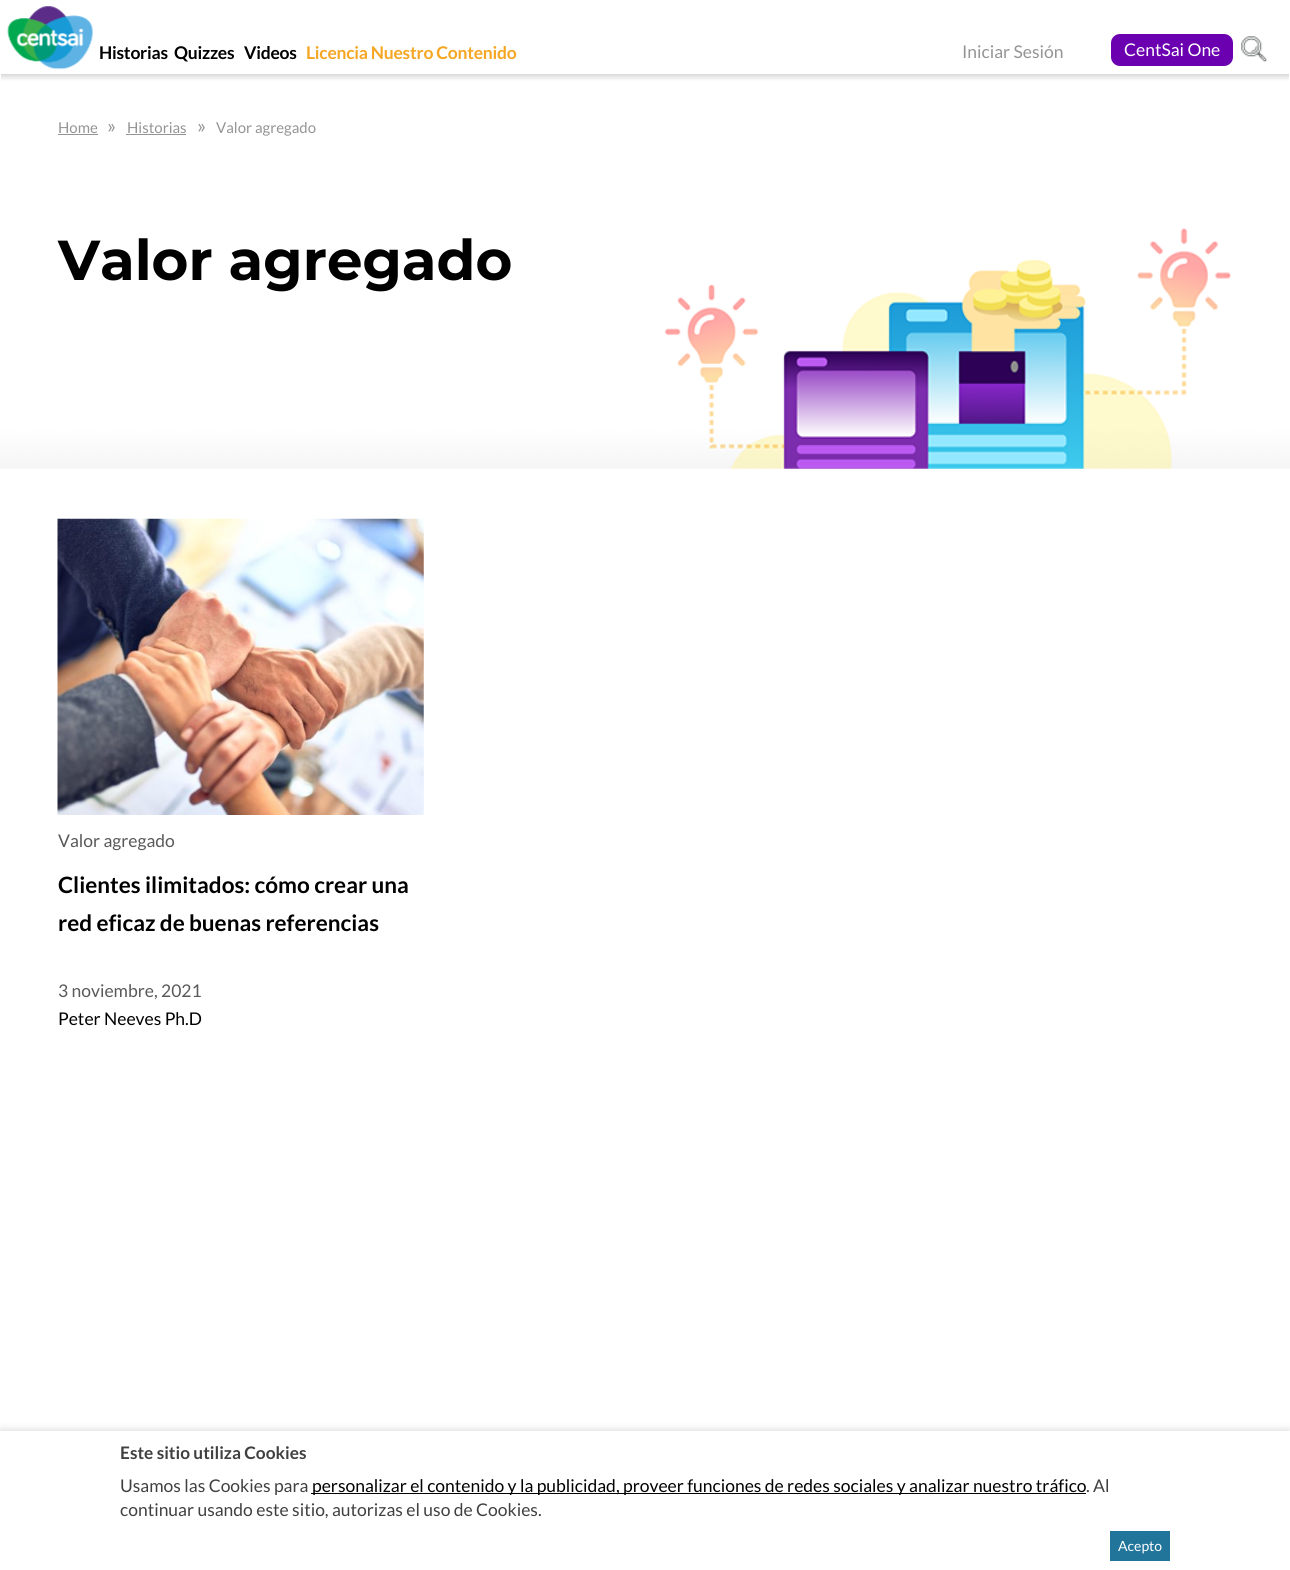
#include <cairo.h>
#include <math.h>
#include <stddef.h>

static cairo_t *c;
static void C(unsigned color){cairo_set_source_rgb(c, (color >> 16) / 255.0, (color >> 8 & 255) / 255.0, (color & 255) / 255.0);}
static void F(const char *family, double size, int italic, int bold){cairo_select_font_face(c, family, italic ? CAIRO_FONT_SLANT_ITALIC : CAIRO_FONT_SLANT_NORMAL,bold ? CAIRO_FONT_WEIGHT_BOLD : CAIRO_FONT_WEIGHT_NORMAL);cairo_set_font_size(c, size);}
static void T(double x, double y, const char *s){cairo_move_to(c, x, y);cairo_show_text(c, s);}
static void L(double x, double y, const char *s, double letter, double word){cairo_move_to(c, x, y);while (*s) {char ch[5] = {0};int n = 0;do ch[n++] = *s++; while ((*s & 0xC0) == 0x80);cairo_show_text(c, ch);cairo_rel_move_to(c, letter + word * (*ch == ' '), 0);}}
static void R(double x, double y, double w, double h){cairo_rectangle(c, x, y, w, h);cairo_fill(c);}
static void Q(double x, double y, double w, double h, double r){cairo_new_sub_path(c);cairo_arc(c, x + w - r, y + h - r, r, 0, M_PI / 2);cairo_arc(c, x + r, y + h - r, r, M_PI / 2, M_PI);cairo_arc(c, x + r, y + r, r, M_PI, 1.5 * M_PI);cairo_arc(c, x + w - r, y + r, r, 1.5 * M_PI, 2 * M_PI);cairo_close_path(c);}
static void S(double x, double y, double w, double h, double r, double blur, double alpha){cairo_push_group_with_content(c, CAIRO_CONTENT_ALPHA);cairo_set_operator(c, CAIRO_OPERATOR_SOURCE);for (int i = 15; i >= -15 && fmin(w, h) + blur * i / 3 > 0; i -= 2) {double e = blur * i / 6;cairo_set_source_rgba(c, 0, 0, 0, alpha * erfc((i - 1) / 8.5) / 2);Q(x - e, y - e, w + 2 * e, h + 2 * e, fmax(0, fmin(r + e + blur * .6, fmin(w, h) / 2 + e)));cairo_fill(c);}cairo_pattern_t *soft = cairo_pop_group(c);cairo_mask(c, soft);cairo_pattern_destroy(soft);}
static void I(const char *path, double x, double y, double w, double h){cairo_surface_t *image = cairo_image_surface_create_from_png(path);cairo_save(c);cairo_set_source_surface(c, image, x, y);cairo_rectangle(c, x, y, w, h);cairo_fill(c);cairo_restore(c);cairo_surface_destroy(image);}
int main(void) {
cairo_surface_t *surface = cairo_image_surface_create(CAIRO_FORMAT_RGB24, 1290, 1570);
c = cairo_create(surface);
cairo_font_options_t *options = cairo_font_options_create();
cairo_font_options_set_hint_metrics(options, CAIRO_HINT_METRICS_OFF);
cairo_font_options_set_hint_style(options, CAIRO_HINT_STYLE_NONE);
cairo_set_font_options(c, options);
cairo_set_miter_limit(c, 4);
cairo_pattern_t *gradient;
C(0xffffff);
cairo_paint(c);
I("1.png",7,6,86,64);
F("Lato",17.5,0,1);
C(0x000000);
L(99,59,"Historias",-.25,0);
L(174,59,"Quizzes",-.25,0);
L(244,59,"Videos",-.25,0);
C(0xf5a623);
L(306,59,"Licencia Nuestro Contenido",-.25,0);
F("Lato",17.5,0,0);
C(0x949494);
T(962,58,"Iniciar Sesión");
C(0x6b00b0);
Q(1111,34,122,32,9);
cairo_fill(c);
C(0xffffff);
T(1124,56,"CentSai One");
I("2.png",1241,36,26,26);
gradient = cairo_pattern_create_linear(645,74,645,81);
cairo_pattern_add_color_stop_rgba(gradient,0,0.851,0.851,0.851,1);
cairo_pattern_add_color_stop_rgba(gradient,1,1,1,1,1);
cairo_set_source(c,gradient);
cairo_pattern_destroy(gradient);
R(1,74,1288,7);
F("Lato",15,0,0);
C(0x949494);
T(58,133,"Home");
R(58,134,40,1);
F("Lato",20,0,0);
T(107,133,"»");
F("Lato",15,0,0);
T(127,133,"Historias");
R(126,134,60,1);
F("Lato",20,0,0);
T(197,133,"»");
F("Lato",15,0,0);
T(216,133,"Valor agregado");
I("3.png",0,228,1290,241);
F("Montserrat",56.25,0,1);
C(0x000000);
T(58,280,"Valor agregado");
I("4.png",57,518,367,297);
F("Lato",17.5,0,0);
C(0x595959);
T(58,847,"Valor agregado");
F("Lato",22.5,0,1);
C(0x000000);
T(58,893,"Clientes ilimitados: cómo crear una");
T(58,931,"red eficaz de buenas referencias");
F("Lato",17.5,0,0);
C(0x595959);
T(58,997,"3 noviembre, 2021");
C(0x000000);
T(58,1025,"Peter Neeves Ph.D");
C(0x000000);
S(0,1428,1290,138,0,3,.1);
C(0xffffff);
R(0,1431,1290,139);
F("Lato",17.25,0,1);
C(0x404040);
T(120,1459,"Este sitio utiliza Cookies");
F("Lato",17.5,0,0);
T(120,1492,"Usamos las Cookies para");
C(0x000000);
R(311,1493,775,1);
T(312,1492,"personalizar el contenido y la publicidad, proveer funciones de redes sociales y analizar nuestro tráfico");
C(0x404040);
T(1086,1492,". Al");
T(120,1516,"continuar usando este sitio, autorizas el uso de Cookies.");
C(0x21759b);
R(1110,1531,60,30);
F("Lato",14,0,0);
C(0xffffff);
T(1118,1551,"Acepto");
cairo_surface_write_to_png(surface, "o.png");
cairo_font_options_destroy(options);
cairo_destroy(c);
cairo_surface_destroy(surface);
return 0;
}
